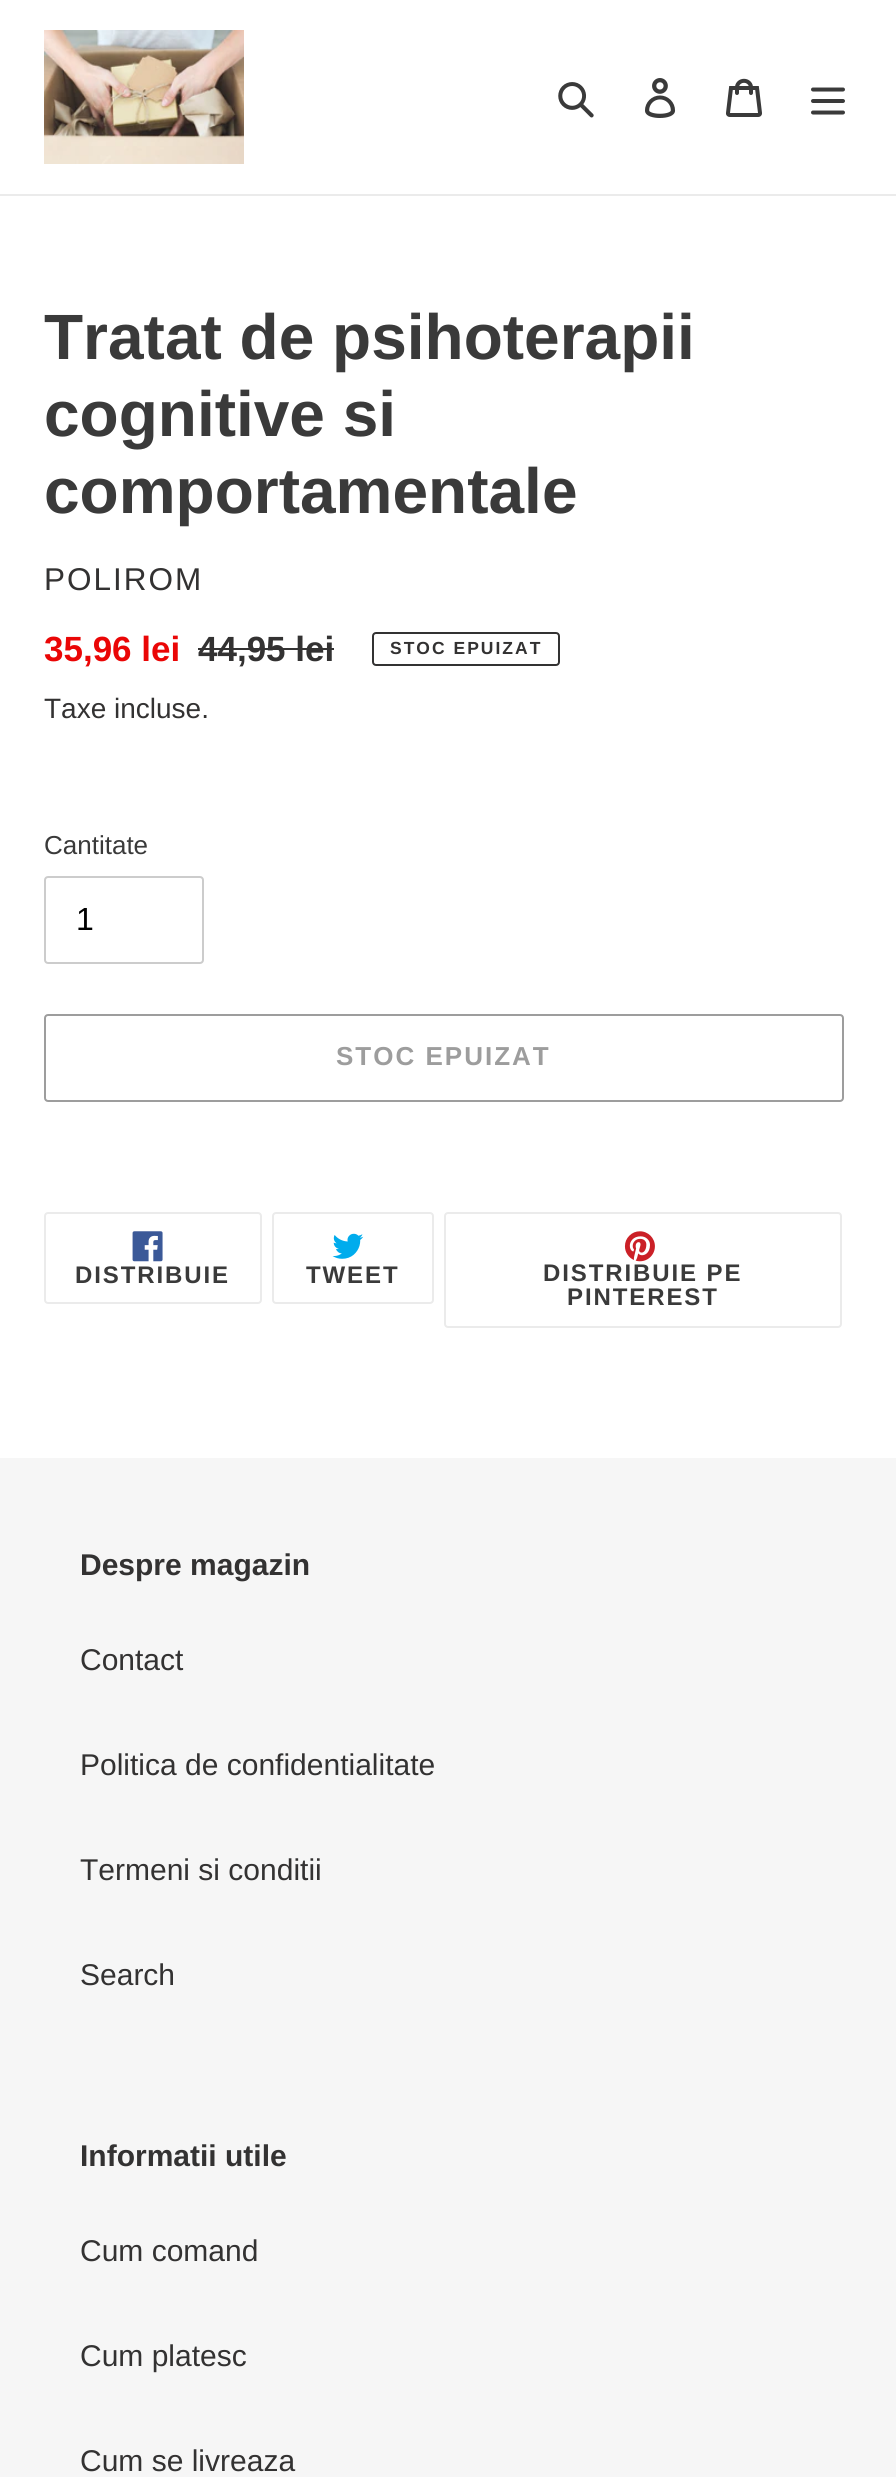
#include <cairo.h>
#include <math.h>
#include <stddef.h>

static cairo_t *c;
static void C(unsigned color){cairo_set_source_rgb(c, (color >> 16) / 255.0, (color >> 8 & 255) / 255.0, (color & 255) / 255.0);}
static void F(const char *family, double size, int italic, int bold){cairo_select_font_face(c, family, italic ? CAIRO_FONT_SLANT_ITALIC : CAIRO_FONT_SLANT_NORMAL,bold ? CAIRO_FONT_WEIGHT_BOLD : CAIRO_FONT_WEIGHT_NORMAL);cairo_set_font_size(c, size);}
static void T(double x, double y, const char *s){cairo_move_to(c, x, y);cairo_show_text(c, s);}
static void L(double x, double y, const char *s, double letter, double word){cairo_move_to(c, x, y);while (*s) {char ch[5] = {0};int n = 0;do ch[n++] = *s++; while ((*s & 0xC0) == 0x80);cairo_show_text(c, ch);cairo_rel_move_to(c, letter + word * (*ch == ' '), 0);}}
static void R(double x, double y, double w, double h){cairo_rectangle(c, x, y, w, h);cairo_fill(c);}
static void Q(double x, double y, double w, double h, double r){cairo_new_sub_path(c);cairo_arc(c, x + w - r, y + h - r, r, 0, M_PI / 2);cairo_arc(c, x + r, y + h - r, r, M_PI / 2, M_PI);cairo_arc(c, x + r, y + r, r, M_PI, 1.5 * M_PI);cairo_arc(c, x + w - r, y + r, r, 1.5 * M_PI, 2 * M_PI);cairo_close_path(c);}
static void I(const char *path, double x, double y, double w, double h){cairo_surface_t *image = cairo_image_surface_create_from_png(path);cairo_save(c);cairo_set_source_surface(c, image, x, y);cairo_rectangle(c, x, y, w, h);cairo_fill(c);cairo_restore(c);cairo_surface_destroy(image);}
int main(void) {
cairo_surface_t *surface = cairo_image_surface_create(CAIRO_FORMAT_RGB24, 896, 2477);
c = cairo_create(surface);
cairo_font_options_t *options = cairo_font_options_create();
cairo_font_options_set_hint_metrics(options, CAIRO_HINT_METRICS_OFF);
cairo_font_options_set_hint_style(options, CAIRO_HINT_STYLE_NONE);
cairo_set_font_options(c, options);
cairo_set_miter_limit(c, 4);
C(0xffffff);
cairo_paint(c);
C(0xebebeb);
R(0,194,896,2);
I("1.png",44,30,200,134);
I("2.png",558,82,36,36);
I("3.png",645,78,31,40);
I("4.png",726,78,36,39);
I("5.png",811,87,34,28);
F("Liberation Sans",64,0,1);
C(0x3a3a3a);
T(44,359,"Tratat de psihoterapii");
T(44,436,"cognitive si");
T(44,513,"comportamentale");
F("Liberation Sans",31.5,0,0);
C(0x333232);
L(44,590,"POLIROM",2,0);
F("Liberation Sans",35,0,1);
C(0xea0606);
T(44,661,"35,96 lei");
C(0x333232);
T(198,661,"44,95 lei");
R(198,648,136,2);
Q(373,633,186,32,3);
cairo_stroke(c);
F("Liberation Sans",17.5,0,1);
L(390,654,"STOC EPUIZAT",2,0);
F("Liberation Sans",28,0,0);
T(44,718,"Taxe incluse.");
F("Liberation Sans",26,0,0);
C(0x3a3a3a);
T(44,854,"Cantitate");
Q(45,877,158,86,3);
C(0xcccccc);
cairo_stroke(c);
F("Liberation Sans",32,0,0);
C(0x000000);
T(76,930,"1");
Q(45,1015,798,86,3);
C(0x9d9d9d);
cairo_stroke(c);
F("Liberation Sans",26,0,1);
L(336,1065,"STOC EPUIZAT",2,0);
Q(45,1213,216,90,3);
C(0xebebeb);
cairo_stroke(c);
I("6.png",132,1231,31,31);
F("Liberation Sans",24,0,1);
C(0x3a3a3a);
L(75,1283,"DISTRIBUIE",1.9,0);
Q(273,1213,160,90,3);
C(0xebebeb);
cairo_stroke(c);
I("7.png",332,1233,32,26);
C(0x3a3a3a);
L(306,1283,"TWEET",1.9,0);
Q(445,1213,396,114,3);
C(0xebebeb);
cairo_stroke(c);
I("8.png",624,1231,31,31);
C(0x3a3a3a);
L(543,1281,"DISTRIBUIE PE",1.9,0);
L(567,1305,"PINTEREST",1.9,0);
C(0xf6f6f6);
R(0,1458,896,1019);
F("Liberation Sans",30,0,1);
C(0x333232);
T(80,1575,"Despre magazin");
F("Liberation Sans",30,0,0);
T(80,1670,"Contact");
T(80,1775,"Politica de confidentialitate");
T(80,1880,"Termeni si conditii");
T(80,1985,"Search");
F("Liberation Sans",30,0,1);
T(80,2166,"Informatii utile");
F("Liberation Sans",30,0,0);
T(80,2261,"Cum comand");
T(80,2366,"Cum platesc");
T(80,2471,"Cum se livreaza");
cairo_surface_write_to_png(surface, "o.png");
cairo_font_options_destroy(options);
cairo_destroy(c);
cairo_surface_destroy(surface);
return 0;
}
